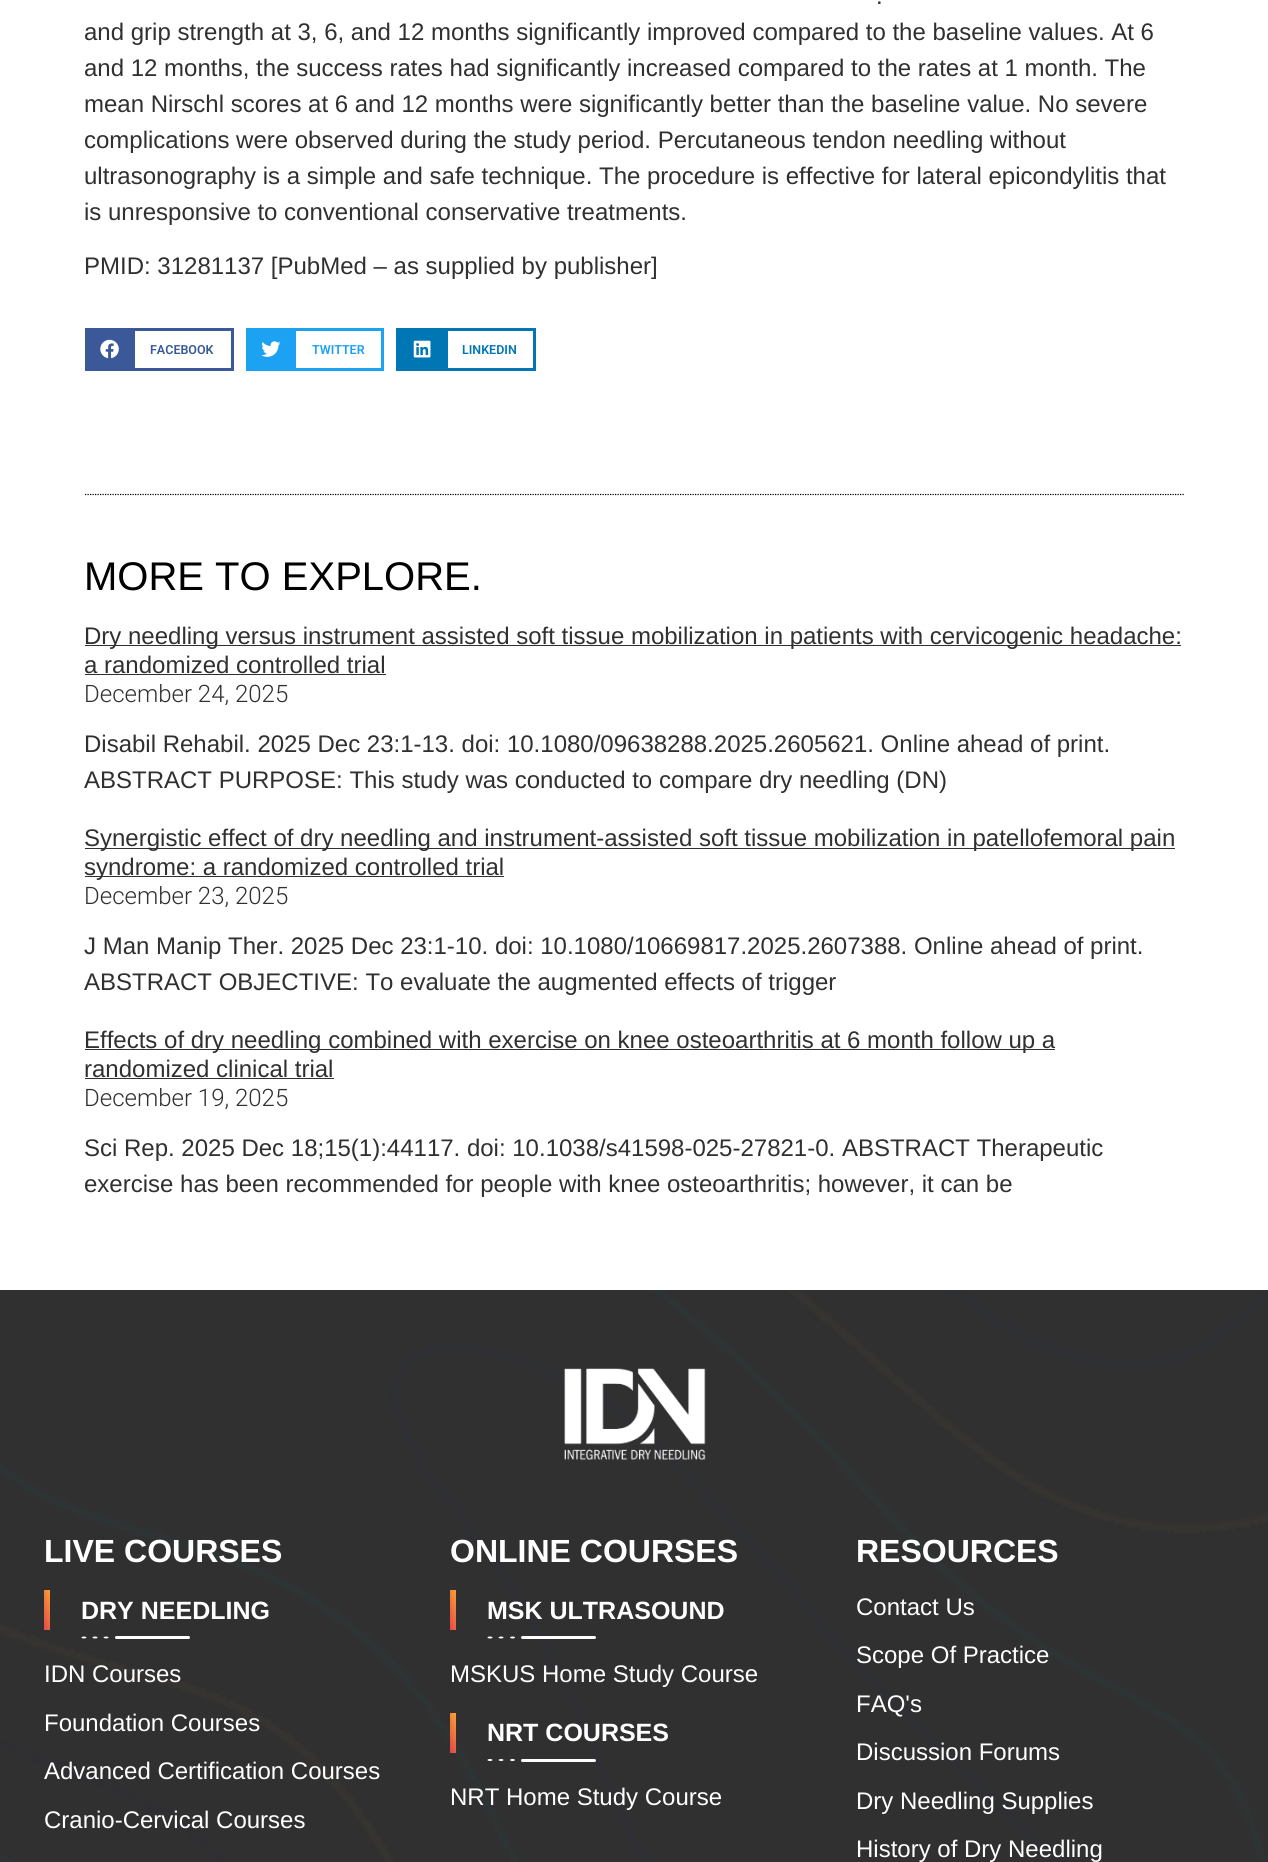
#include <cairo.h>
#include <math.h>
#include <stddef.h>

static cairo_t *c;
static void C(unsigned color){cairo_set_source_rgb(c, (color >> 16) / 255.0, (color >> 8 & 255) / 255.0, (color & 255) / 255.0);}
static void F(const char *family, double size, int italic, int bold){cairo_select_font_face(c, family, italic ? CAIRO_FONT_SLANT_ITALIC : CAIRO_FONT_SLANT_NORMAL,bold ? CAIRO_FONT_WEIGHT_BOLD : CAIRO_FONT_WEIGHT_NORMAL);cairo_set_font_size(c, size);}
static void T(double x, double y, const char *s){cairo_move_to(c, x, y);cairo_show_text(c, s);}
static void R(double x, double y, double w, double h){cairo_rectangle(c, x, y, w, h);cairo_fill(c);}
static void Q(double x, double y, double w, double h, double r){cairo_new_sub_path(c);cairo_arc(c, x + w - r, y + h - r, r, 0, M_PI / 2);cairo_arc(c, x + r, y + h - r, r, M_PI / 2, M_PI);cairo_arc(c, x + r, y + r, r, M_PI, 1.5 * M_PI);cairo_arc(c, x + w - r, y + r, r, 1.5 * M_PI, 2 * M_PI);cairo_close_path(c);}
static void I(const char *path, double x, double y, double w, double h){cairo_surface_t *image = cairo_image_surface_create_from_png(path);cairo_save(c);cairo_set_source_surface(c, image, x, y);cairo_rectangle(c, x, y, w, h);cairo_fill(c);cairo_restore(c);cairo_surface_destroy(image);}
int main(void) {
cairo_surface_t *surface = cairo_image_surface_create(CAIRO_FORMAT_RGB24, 1268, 1862);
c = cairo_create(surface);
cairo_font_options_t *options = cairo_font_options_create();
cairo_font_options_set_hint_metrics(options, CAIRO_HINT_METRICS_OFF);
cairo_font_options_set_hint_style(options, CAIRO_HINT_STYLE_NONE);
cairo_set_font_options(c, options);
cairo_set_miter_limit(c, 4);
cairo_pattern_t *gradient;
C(0xffffff);
cairo_paint(c);
F("Liberation Sans",24,0,0);
C(0x303030);
T(876,4,".");
T(84,40,"and grip strength at 3, 6, and 12 months significantly improved compared to the baseline values. At 6");
T(84,76,"and 12 months, the success rates had significantly increased compared to the rates at 1 month. The");
T(84,112,"mean Nirschl scores at 6 and 12 months were significantly better than the baseline value. No severe");
T(84,148,"complications were observed during the study period. Percutaneous tendon needling without");
T(84,184,"ultrasonography is a simple and safe technique. The procedure is effective for lateral epicondylitis that");
T(84,220,"is unresponsive to conventional conservative treatments.");
T(84,274,"PMID: 31281137 [PubMed – as supplied by publisher]");
cairo_rectangle(c,86.5,329.5,146,40);
C(0x3b5998);
cairo_set_line_width(c,3);
cairo_stroke(c);
R(88,331,47,37);
I("1.png",100,339,19,20);
F("Roboto SemiBold",12.5,0,0);
T(150,354,"FACEBOOK");
cairo_rectangle(c,247.5,329.5,135,40);
C(0x1da1f2);
cairo_stroke(c);
R(249,331,47,37);
I("2.png",261,341,20,16);
T(312,354,"TWITTER");
cairo_rectangle(c,397.5,329.5,137,40);
C(0x0077b5);
cairo_stroke(c);
R(399,331,49,37);
I("3.png",413,340,18,18);
T(462,354,"LINKEDIN");
cairo_new_path(c);
cairo_move_to(c,85,494.5);
cairo_line_to(c,1185,494.5);
C(0x000000);
cairo_set_line_width(c,1.2);
cairo_set_dash(c,(double[]){1.25,1.25},2,0);
cairo_stroke(c);
F("Liberation Sans",40,0,0);
T(84,590,"MORE TO EXPLORE.");
C(0x303030);
R(85,645,1096,1);
F("Liberation Sans",24,0,0);
T(84,644,"Dry needling versus instrument assisted soft tissue mobilization in patients with cervicogenic headache:");
T(84,673,"a randomized controlled trial");
R(85,674,301,1);
F("Roboto Light",24,0,0);
T(84,702,"December 24, 2025");
F("Liberation Sans",24,0,0);
T(84,752,"Disabil Rehabil. 2025 Dec 23:1-13. doi: 10.1080/09638288.2025.2605621. Online ahead of print.");
T(84,788,"ABSTRACT PURPOSE: This study was conducted to compare dry needling (DN)");
R(85,848,1090,1);
T(84,846,"Synergistic effect of dry needling and instrument-assisted soft tissue mobilization in patellofemoral pain");
R(85,876,419,1);
T(84,875,"syndrome: a randomized controlled trial");
F("Roboto Light",24,0,0);
T(84,904,"December 23, 2025");
F("Liberation Sans",24,0,0);
T(84,954,"J Man Manip Ther. 2025 Dec 23:1-10. doi: 10.1080/10669817.2025.2607388. Online ahead of print.");
T(84,990,"ABSTRACT OBJECTIVE: To evaluate the augmented effects of trigger");
R(85,1049,970,1);
T(84,1048,"Effects of dry needling combined with exercise on knee osteoarthritis at 6 month follow up a");
T(84,1077,"randomized clinical trial");
R(85,1078,249,1);
F("Roboto Light",24,0,0);
T(84,1106,"December 19, 2025");
F("Liberation Sans",24,0,0);
T(84,1156,"Sci Rep. 2025 Dec 18;15(1):44117. doi: 10.1038/s41598-025-27821-0. ABSTRACT Therapeutic");
T(84,1192,"exercise has been recommended for people with knee osteoarthritis; however, it can be");
R(0,1290,1268,572);
I("4.png",0,1290,1268,572);
I("5.png",564,1368,142,92);
F("Liberation Sans",32,0,1);
C(0xffffff);
T(44,1562,"LIVE COURSES");
gradient = cairo_pattern_create_linear(56,1607,38,1613);
cairo_pattern_add_color_stop_rgba(gradient,0,0.98,0.639,0.192,1);
cairo_pattern_add_color_stop_rgba(gradient,1,0.89,0.271,0.298,1);
cairo_set_source(c,gradient);
cairo_pattern_destroy(gradient);
R(44,1590,6,40);
F("Liberation Sans",25,0,1);
C(0xffffff);
T(81,1619,"DRY NEEDLING");
Q(115,1636,75,3,1.5);
cairo_fill(c);
cairo_new_path(c);
cairo_move_to(c,106,1636.5);
cairo_curve_to(c,107.5,1636.5,108.5,1637,108.5,1637.5);
cairo_curve_to(c,108.5,1638,107.5,1638.5,106,1638.5);
cairo_curve_to(c,105,1638.5,103.5,1638,103.5,1637.5);
cairo_curve_to(c,103.5,1637,105,1636.5,106,1636.5);
cairo_close_path(c);
cairo_fill(c);
cairo_new_path(c);
cairo_move_to(c,95,1636.5);
cairo_curve_to(c,96.5,1636.5,97.5,1637,97.5,1637.5);
cairo_curve_to(c,97.5,1638,96.5,1638.5,95,1638.5);
cairo_curve_to(c,93.5,1638.5,92.5,1638,92.5,1637.5);
cairo_curve_to(c,92.5,1637,93.5,1636.5,95,1636.5);
cairo_close_path(c);
cairo_fill(c);
cairo_new_path(c);
cairo_move_to(c,84,1636.5);
cairo_curve_to(c,85,1636.5,86.5,1637,86.5,1637.5);
cairo_curve_to(c,86.5,1638,85,1638.5,84,1638.5);
cairo_curve_to(c,82.5,1638.5,81.5,1638,81.5,1637.5);
cairo_curve_to(c,81.5,1637,82.5,1636.5,84,1636.5);
cairo_close_path(c);
cairo_fill(c);
F("Liberation Sans",24,0,0);
T(44,1682,"IDN Courses");
C(0x303030);
R(164,1684,17,1);
C(0xffffff);
T(44,1731,"Foundation Courses");
T(44,1779,"Advanced Certification Courses");
C(0x303030);
R(326,1780,13,1);
C(0xffffff);
T(44,1828,"Cranio-Cervical Courses");
F("Liberation Sans",32,0,1);
T(450,1562,"ONLINE COURSES");
gradient = cairo_pattern_create_linear(462,1607,444,1613);
cairo_pattern_add_color_stop_rgba(gradient,0,0.98,0.639,0.192,1);
cairo_pattern_add_color_stop_rgba(gradient,1,0.89,0.271,0.298,1);
cairo_set_source(c,gradient);
cairo_pattern_destroy(gradient);
R(450,1590,6,40);
F("Liberation Sans",25,0,1);
C(0xffffff);
T(487,1619,"MSK ULTRASOUND");
Q(521,1636,75,3,1.5);
cairo_fill(c);
cairo_new_path(c);
cairo_move_to(c,512.5,1636.5);
cairo_curve_to(c,514,1636.5,515,1637,515,1637.5);
cairo_curve_to(c,515,1638,514,1638.5,512.5,1638.5);
cairo_curve_to(c,511,1638.5,510,1638,510,1637.5);
cairo_curve_to(c,510,1637,511,1636.5,512.5,1636.5);
cairo_close_path(c);
cairo_fill(c);
cairo_new_path(c);
cairo_move_to(c,501,1636.5);
cairo_curve_to(c,502.5,1636.5,503.5,1637,503.5,1637.5);
cairo_curve_to(c,503.5,1638,502.5,1638.5,501,1638.5);
cairo_curve_to(c,500,1638.5,498.5,1638,498.5,1637.5);
cairo_curve_to(c,498.5,1637,500,1636.5,501,1636.5);
cairo_close_path(c);
cairo_fill(c);
cairo_new_path(c);
cairo_move_to(c,490,1636.5);
cairo_curve_to(c,491.5,1636.5,492.5,1637,492.5,1637.5);
cairo_curve_to(c,492.5,1638,491.5,1638.5,490,1638.5);
cairo_curve_to(c,488.5,1638.5,487.5,1638,487.5,1637.5);
cairo_curve_to(c,487.5,1637,488.5,1636.5,490,1636.5);
cairo_close_path(c);
cairo_fill(c);
C(0x303030);
R(562,1684,7,1);
F("Liberation Sans",24,0,0);
C(0xffffff);
T(450,1682,"MSKUS Home Study Course");
gradient = cairo_pattern_create_linear(462,1729,444,1736);
cairo_pattern_add_color_stop_rgba(gradient,0,0.98,0.639,0.192,1);
cairo_pattern_add_color_stop_rgba(gradient,1,0.89,0.271,0.298,1);
cairo_set_source(c,gradient);
cairo_pattern_destroy(gradient);
R(450,1713,6,40);
F("Liberation Sans",25,0,1);
C(0xffffff);
T(487,1741,"NRT COURSES");
Q(521,1759,75,3,1.5);
cairo_fill(c);
cairo_new_path(c);
cairo_move_to(c,512.5,1759);
cairo_curve_to(c,514,1759,515,1759.5,515,1760);
cairo_curve_to(c,515,1760.5,514,1761,512.5,1761);
cairo_curve_to(c,511,1761,510,1760.5,510,1760);
cairo_curve_to(c,510,1759.5,511,1759,512.5,1759);
cairo_close_path(c);
cairo_fill(c);
cairo_new_path(c);
cairo_move_to(c,501,1759);
cairo_curve_to(c,502.5,1759,503.5,1759.5,503.5,1760);
cairo_curve_to(c,503.5,1760.5,502.5,1761,501,1761);
cairo_curve_to(c,500,1761,498.5,1760.5,498.5,1760);
cairo_curve_to(c,498.5,1759.5,500,1759,501,1759);
cairo_close_path(c);
cairo_fill(c);
cairo_new_path(c);
cairo_move_to(c,490,1759);
cairo_curve_to(c,491.5,1759,492.5,1759.5,492.5,1760);
cairo_curve_to(c,492.5,1760.5,491.5,1761,490,1761);
cairo_curve_to(c,488.5,1761,487.5,1760.5,487.5,1760);
cairo_curve_to(c,487.5,1759.5,488.5,1759,490,1759);
cairo_close_path(c);
cairo_fill(c);
C(0x303030);
R(485,1806,136,1);
F("Liberation Sans",24,0,0);
C(0xffffff);
T(450,1805,"NRT Home Study Course");
F("Liberation Sans",32,0,1);
T(856,1562,"RESOURCES");
F("Liberation Sans",24,0,0);
T(856,1615,"Contact Us");
C(0x303030);
R(856,1665,8,1);
C(0xffffff);
T(856,1663,"Scope Of Practice");
C(0x303030);
R(901,1713,10,1);
C(0xffffff);
T(856,1712,"FAQ's");
T(856,1760,"Discussion Forums");
C(0x303030);
R(950,1761,9,1);
R(1003,1810,9,1);
C(0xffffff);
T(856,1809,"Dry Needling Supplies");
C(0x303030);
R(1051,1859,9,1);
C(0xffffff);
T(856,1857,"History of Dry Needling");
cairo_surface_write_to_png(surface, "o.png");
cairo_font_options_destroy(options);
cairo_destroy(c);
cairo_surface_destroy(surface);
return 0;
}
